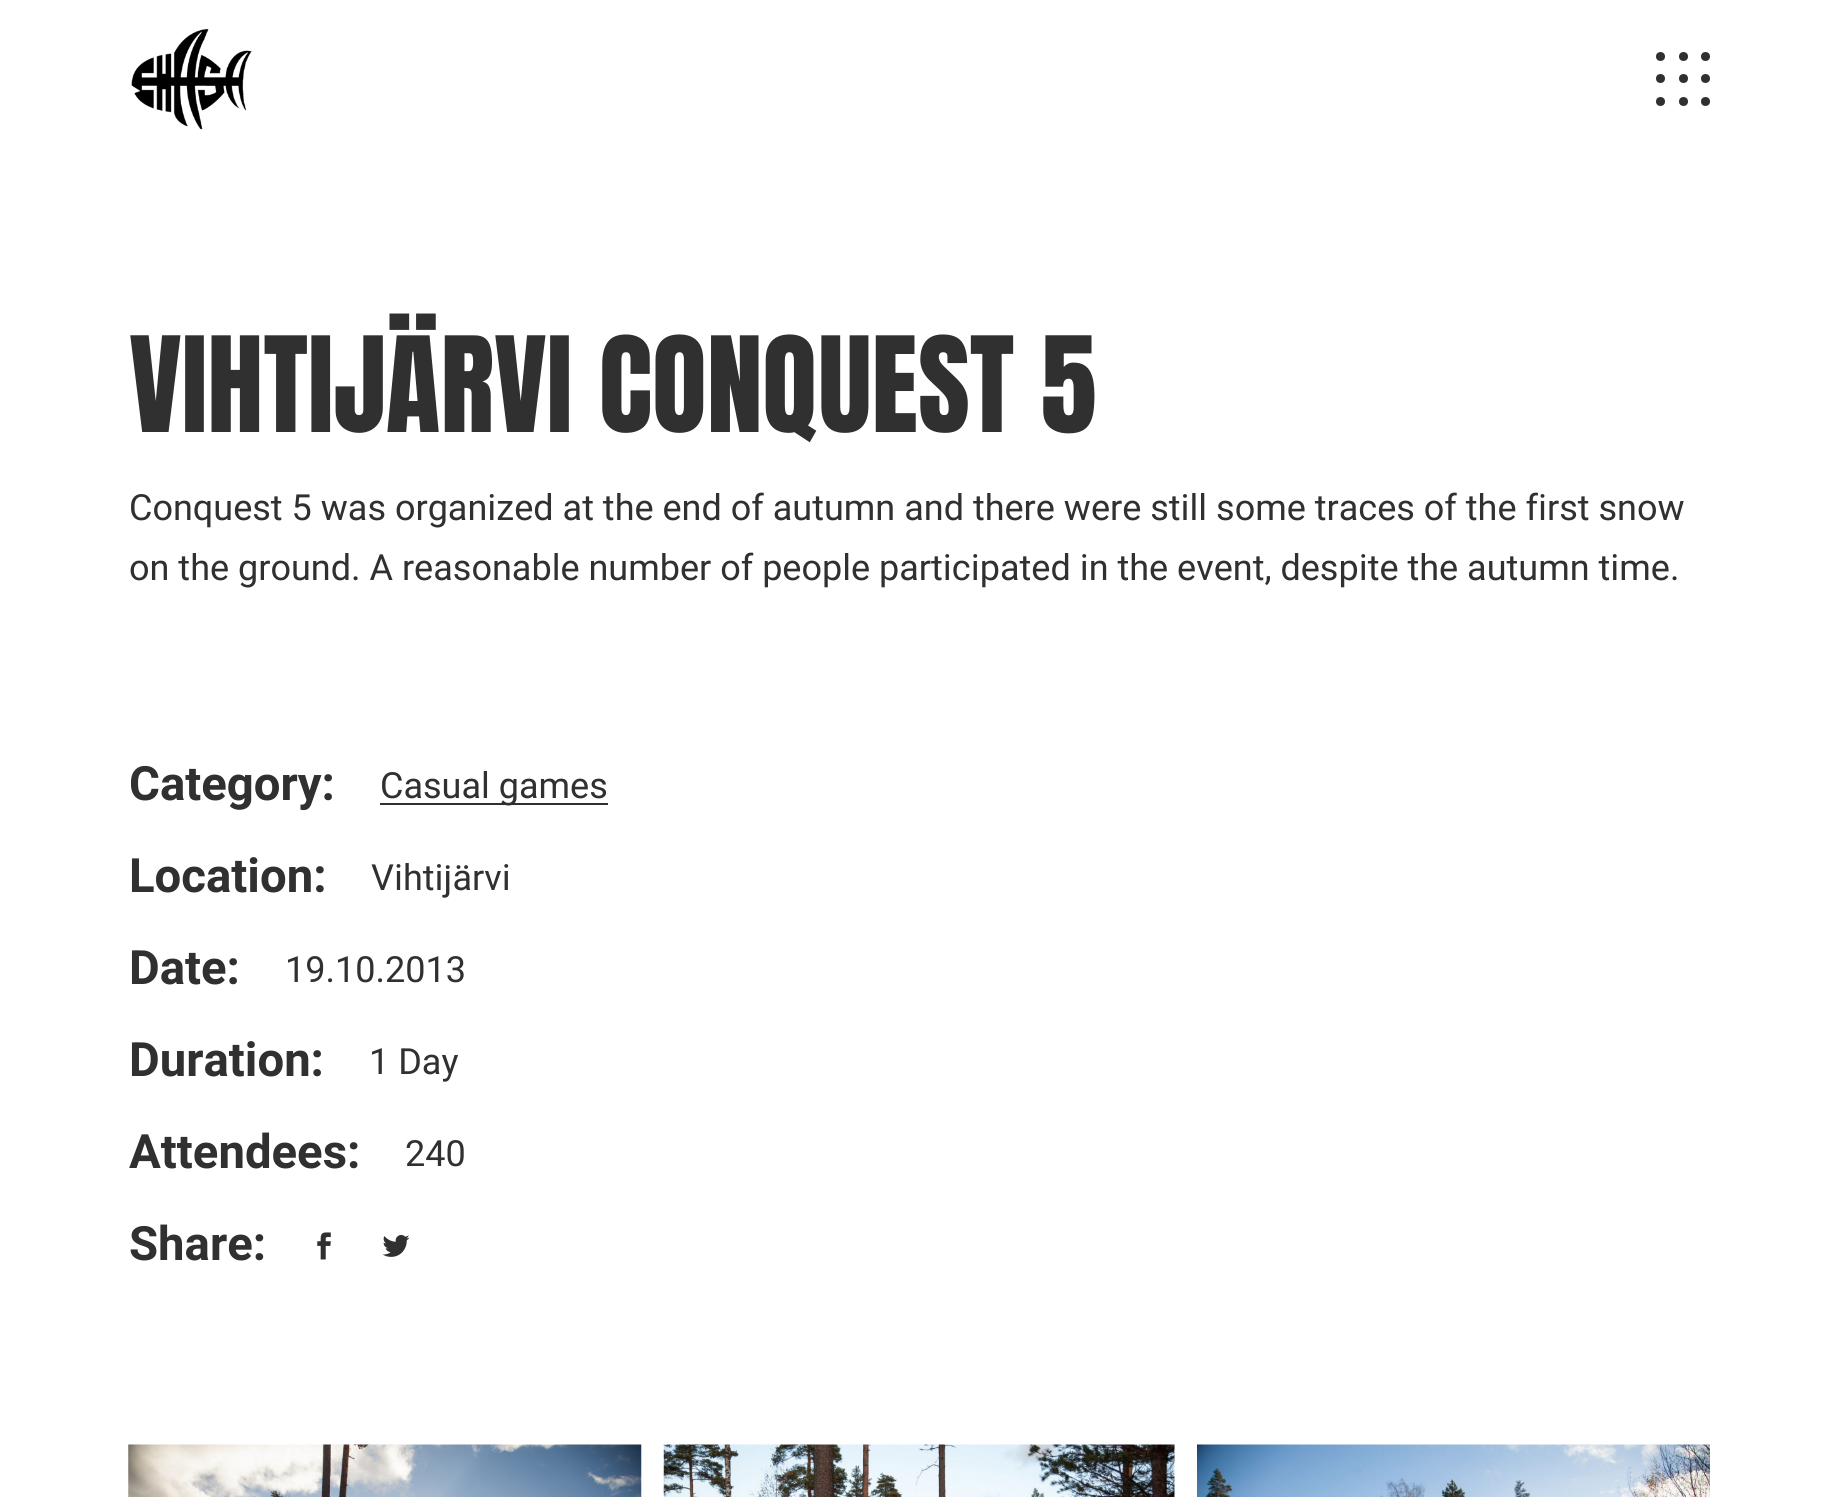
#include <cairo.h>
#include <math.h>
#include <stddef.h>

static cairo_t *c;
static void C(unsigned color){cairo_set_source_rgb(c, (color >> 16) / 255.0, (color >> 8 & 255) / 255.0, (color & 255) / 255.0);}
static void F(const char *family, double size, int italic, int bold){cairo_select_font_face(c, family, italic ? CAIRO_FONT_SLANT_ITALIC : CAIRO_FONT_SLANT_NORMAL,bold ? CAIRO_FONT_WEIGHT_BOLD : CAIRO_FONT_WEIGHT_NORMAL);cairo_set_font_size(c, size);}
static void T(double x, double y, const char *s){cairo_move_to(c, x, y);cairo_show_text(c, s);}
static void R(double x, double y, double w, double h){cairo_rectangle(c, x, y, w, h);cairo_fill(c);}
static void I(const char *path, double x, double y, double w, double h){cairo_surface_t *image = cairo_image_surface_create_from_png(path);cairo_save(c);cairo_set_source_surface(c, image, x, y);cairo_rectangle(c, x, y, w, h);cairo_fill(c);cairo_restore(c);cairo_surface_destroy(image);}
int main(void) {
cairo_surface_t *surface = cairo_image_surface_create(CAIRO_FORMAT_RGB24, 1837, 1497);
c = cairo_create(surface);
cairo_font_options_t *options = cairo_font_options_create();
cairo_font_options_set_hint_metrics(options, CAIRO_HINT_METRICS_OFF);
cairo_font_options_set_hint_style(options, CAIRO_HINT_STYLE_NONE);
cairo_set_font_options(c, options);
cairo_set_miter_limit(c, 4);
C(0xffffff);
cairo_paint(c);
I("1.png",131,28,121,102);
C(0x303030);
cairo_arc(c,1660.5,56.5,4.5,0,2 * M_PI);
cairo_fill(c);
cairo_arc(c,1683.5,56.5,4.5,0,2 * M_PI);
cairo_fill(c);
cairo_arc(c,1705.5,56.5,4.5,0,2 * M_PI);
cairo_fill(c);
cairo_arc(c,1660.5,78.5,4.5,0,2 * M_PI);
cairo_fill(c);
cairo_arc(c,1683.5,78.5,4.5,0,2 * M_PI);
cairo_fill(c);
cairo_arc(c,1705.5,78.5,4.5,0,2 * M_PI);
cairo_fill(c);
cairo_arc(c,1660.5,101.5,4.5,0,2 * M_PI);
cairo_fill(c);
cairo_arc(c,1683.5,101.5,4.5,0,2 * M_PI);
cairo_fill(c);
cairo_arc(c,1705.5,101.5,4.5,0,2 * M_PI);
cairo_fill(c);
F("Anton",112.5,0,0);
T(129,432,"VIHTIJÄRVI CONQUEST 5");
F("Heebo",36,0,0);
T(129,520,"Conquest 5 was organized at the end of autumn and there were still some traces of the first snow");
T(129,580,"on the ground. A reasonable number of people participated in the event, despite the autumn time.");
F("Heebo",47.25,0,1);
T(129,800,"Category:");
F("Heebo",36,0,0);
T(380,798,"Casual games");
R(380,803,228,2);
F("Heebo",47.25,0,1);
T(129,892,"Location:");
F("Heebo",36,0,0);
T(371,890,"Vihtijärvi");
F("Heebo",47.25,0,1);
T(129,984,"Date:");
F("Heebo",36,0,0);
T(285,982,"19.10.2013");
F("Heebo",47.25,0,1);
T(129,1076,"Duration:");
F("Heebo",36,0,0);
T(369,1074,"1 Day");
F("Heebo",47.25,0,1);
T(129,1168,"Attendees:");
F("Heebo",36,0,0);
T(405,1166,"240");
F("Heebo",47.25,0,1);
T(129,1260,"Share:");
I("2.png",317,1232,14,28);
I("3.png",382,1235,28,22);
I("4.png",128,1444,514,53);
I("5.png",663,1444,512,53);
I("6.png",1197,1444,513,53);
cairo_surface_write_to_png(surface, "o.png");
cairo_font_options_destroy(options);
cairo_destroy(c);
cairo_surface_destroy(surface);
return 0;
}
